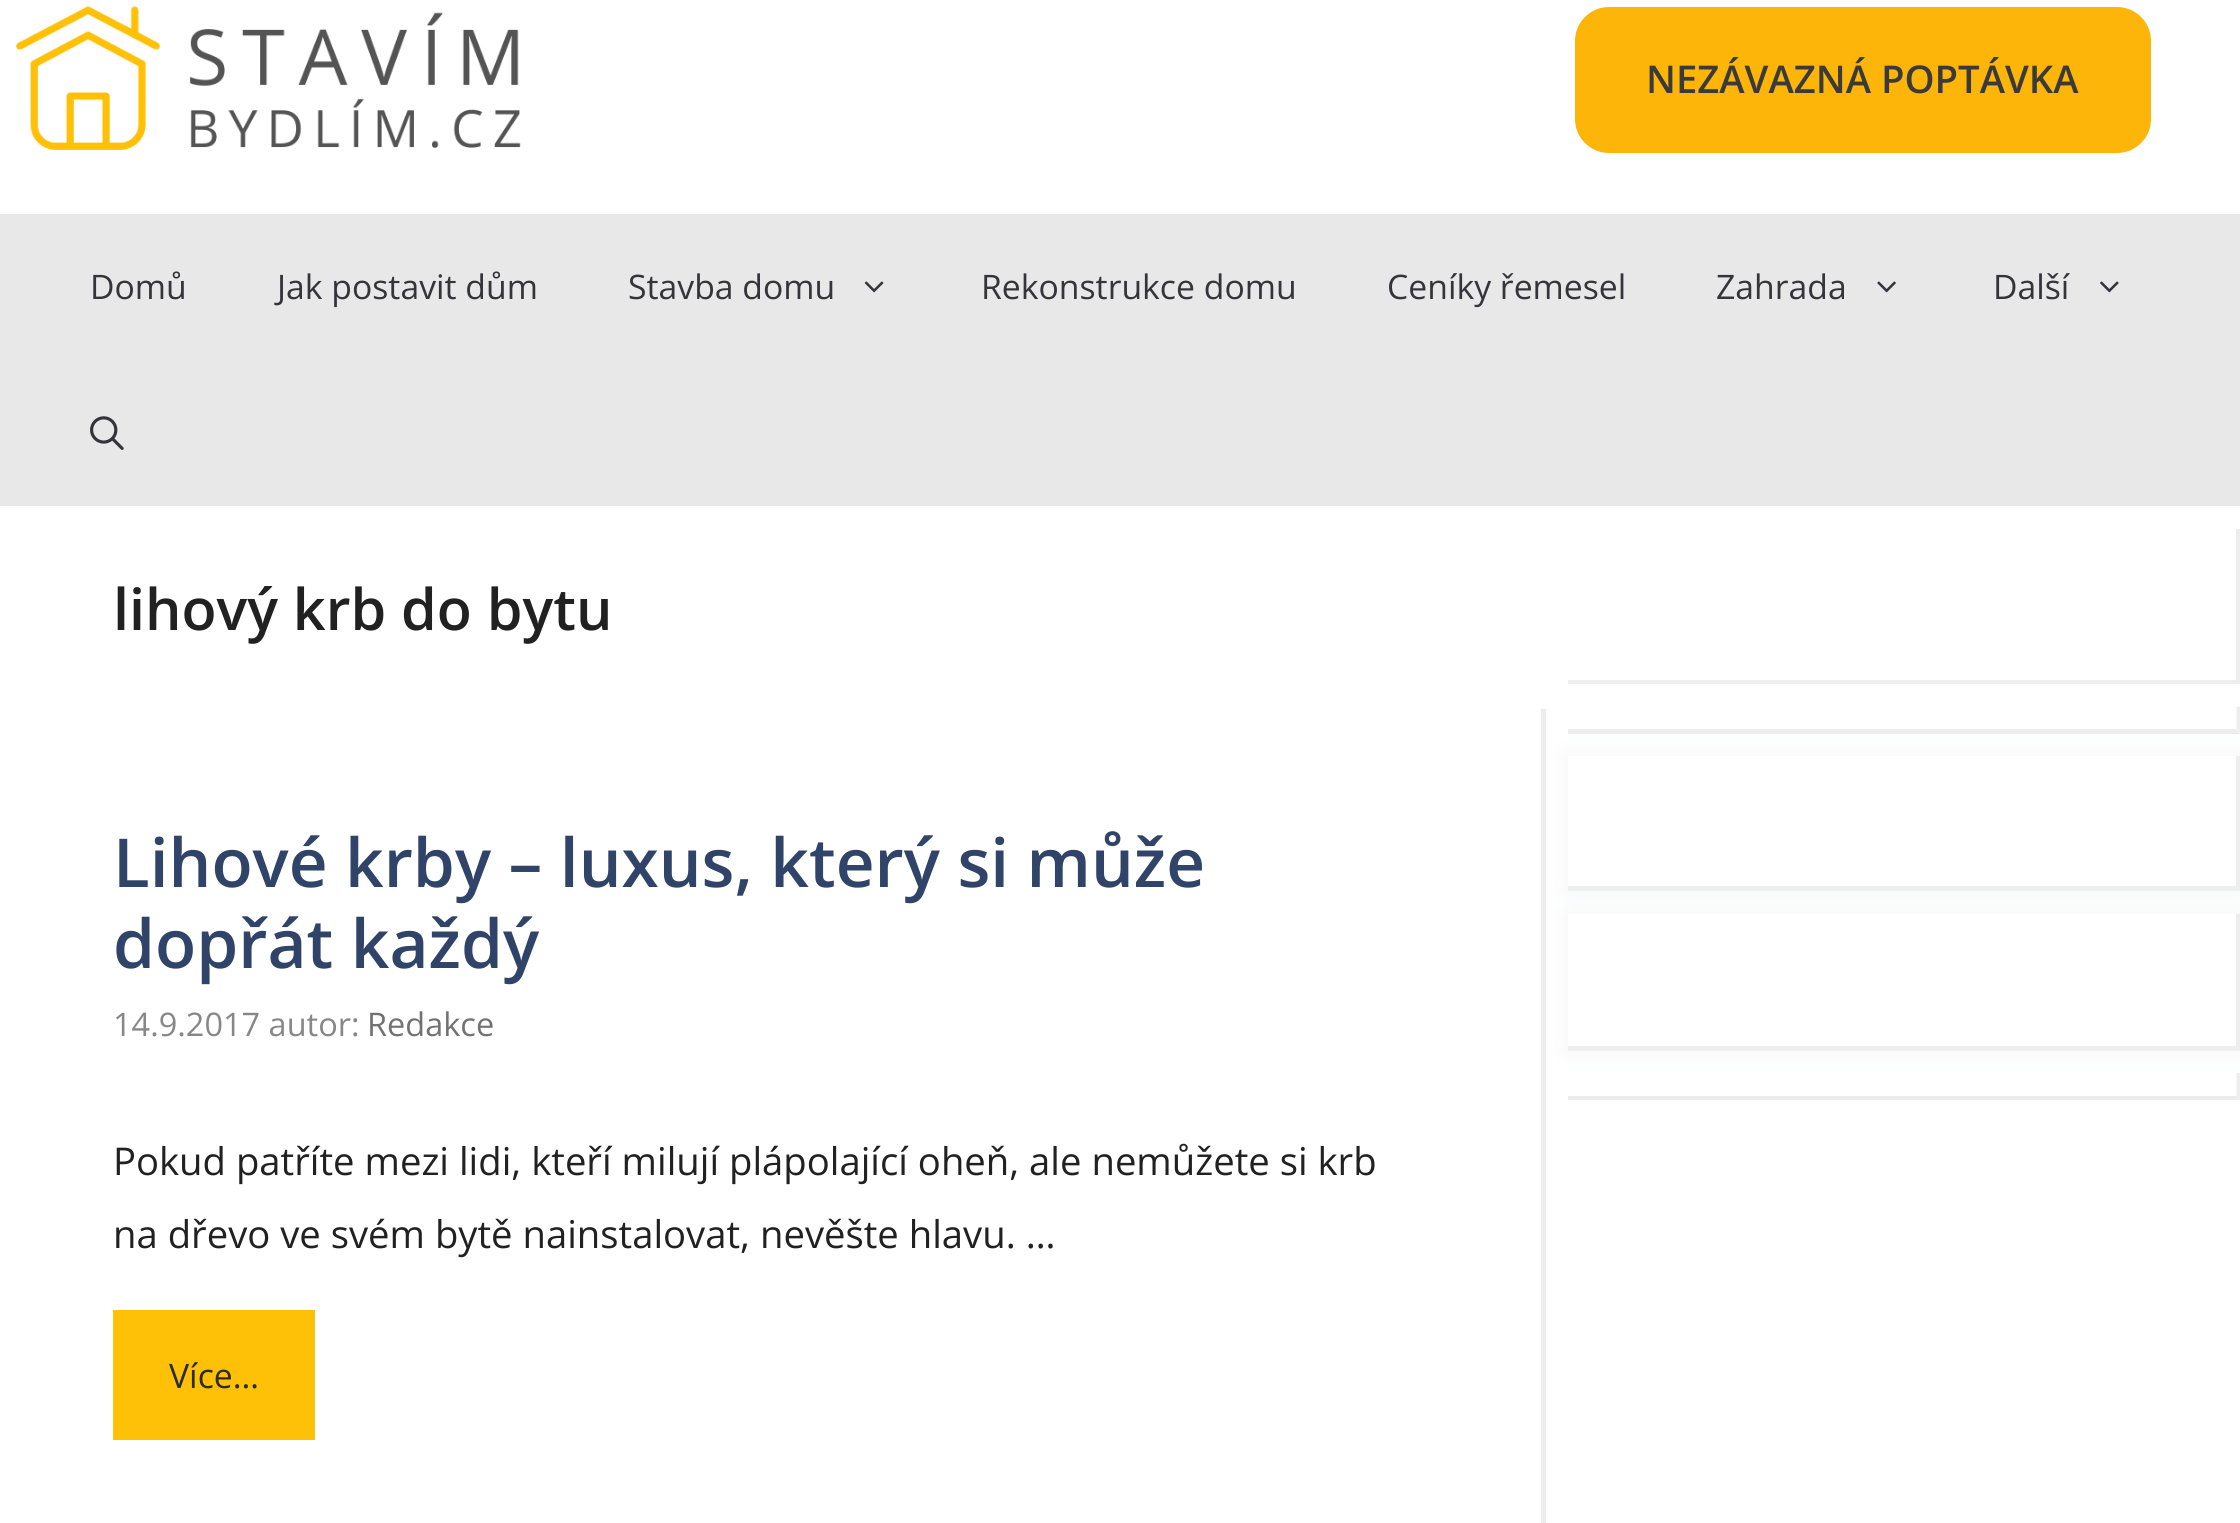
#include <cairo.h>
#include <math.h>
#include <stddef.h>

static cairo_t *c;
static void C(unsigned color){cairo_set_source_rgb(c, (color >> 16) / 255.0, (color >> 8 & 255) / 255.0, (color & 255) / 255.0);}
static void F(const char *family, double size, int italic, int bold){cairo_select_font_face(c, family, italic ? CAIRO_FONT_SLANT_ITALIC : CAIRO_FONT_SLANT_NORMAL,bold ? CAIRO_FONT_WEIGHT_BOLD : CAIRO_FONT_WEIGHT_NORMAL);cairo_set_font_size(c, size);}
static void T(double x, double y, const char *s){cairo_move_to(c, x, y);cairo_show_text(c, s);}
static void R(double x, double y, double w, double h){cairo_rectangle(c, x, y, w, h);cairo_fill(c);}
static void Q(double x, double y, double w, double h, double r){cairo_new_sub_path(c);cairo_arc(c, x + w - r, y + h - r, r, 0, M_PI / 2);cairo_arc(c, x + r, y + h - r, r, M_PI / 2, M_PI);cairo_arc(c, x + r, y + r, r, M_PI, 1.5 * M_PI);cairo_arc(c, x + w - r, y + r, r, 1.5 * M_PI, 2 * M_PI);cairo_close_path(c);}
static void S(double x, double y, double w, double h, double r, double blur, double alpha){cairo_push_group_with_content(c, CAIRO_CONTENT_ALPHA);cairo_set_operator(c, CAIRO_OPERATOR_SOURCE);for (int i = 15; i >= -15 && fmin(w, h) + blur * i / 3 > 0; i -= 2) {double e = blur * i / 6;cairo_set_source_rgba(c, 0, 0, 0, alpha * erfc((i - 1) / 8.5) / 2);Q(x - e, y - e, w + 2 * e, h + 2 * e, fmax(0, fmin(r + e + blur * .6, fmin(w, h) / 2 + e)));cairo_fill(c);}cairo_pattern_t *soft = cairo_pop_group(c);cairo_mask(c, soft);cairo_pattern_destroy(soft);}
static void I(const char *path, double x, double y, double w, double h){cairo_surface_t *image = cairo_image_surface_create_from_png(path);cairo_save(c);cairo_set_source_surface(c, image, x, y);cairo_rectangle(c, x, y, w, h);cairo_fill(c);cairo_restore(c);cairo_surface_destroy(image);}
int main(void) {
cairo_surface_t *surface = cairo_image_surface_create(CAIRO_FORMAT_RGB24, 2240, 1523);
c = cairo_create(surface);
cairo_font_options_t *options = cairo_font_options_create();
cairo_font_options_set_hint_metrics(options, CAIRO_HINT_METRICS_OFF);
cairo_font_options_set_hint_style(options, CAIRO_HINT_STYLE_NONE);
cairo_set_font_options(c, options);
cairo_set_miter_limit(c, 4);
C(0xffffff);
cairo_paint(c);
I("1.png",16,6,505,144);
C(0xfcb508);
Q(1575,7,576,146,34);
cairo_fill(c);
F("Open Sans SemiBold",38.25,0,0);
C(0x3a3a3a);
T(1646,93,"NEZÁVAZNÁ POPTÁVKA");
C(0xe8e8e8);
R(0,214,2240,292);
F("Open Sans",33.75,0,0);
C(0x35343a);
T(90,299,"Domů");
T(277,299,"Jak postavit dům");
T(628,299,"Stavba domu");
I("2.png",864,281,20,12);
T(981,299,"Rekonstrukce domu");
T(1387,299,"Ceníky řemesel");
T(1716,299,"Zahrada");
I("3.png",1877,281,19,12);
T(1993,299,"Další");
I("4.png",2100,281,19,12);
I("5.png",90,416,34,34);
F("Open Sans SemiBold",57.4,0,0);
C(0x212121);
T(113,630,"lihový krb do bytu");
C(0xededed);
cairo_new_path(c);
cairo_move_to(c,1546,709);
cairo_line_to(c,1546,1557);
cairo_line_to(c,1541,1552);
cairo_line_to(c,1541,709);
cairo_close_path(c);
cairo_fill(c);
F("Open Sans SemiBold",67.5,0,0);
C(0x2f4468);
T(113,887,"Lihové krby – luxus, který si může");
T(113,968,"dopřát každý");
F("Open Sans",32.5,0,0);
C(0x878787);
T(113,1036,"14.9.2017 autor:");
C(0x727272);
T(367,1036,"Redakce");
F("Open Sans",38.25,0,0);
C(0x212121);
T(113,1175,"Pokud patříte mezi lidi, kteří milují plápolající oheň, ale nemůžete si krb");
T(113,1248,"na dřevo ve svém bytě nainstalovat, nevěšte hlavu. …");
C(0xffc107);
R(113,1310,202,130);
F("Open Sans",33.75,0,0);
C(0x2b2b2b);
T(169,1388,"Více…");
C(0xededed);
cairo_new_path(c);
cairo_move_to(c,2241,529);
cairo_line_to(c,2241,684);
cairo_line_to(c,2236,680);
cairo_line_to(c,2236,529);
cairo_close_path(c);
cairo_fill(c);
cairo_set_source_rgba(c,0,0,0,0.07);
cairo_new_path(c);
cairo_move_to(c,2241,684);
cairo_line_to(c,1568,684);
cairo_line_to(c,1568,680);
cairo_line_to(c,2236,680);
cairo_close_path(c);
cairo_fill(c);
C(0xededed);
cairo_new_path(c);
cairo_move_to(c,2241,706.5);
cairo_line_to(c,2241,733.5);
cairo_line_to(c,2236.5,729);
cairo_line_to(c,2236.5,706.5);
cairo_close_path(c);
cairo_fill(c);
cairo_new_path(c);
cairo_move_to(c,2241,734);
cairo_line_to(c,1568,734);
cairo_line_to(c,1568,729);
cairo_line_to(c,2236,729);
cairo_close_path(c);
cairo_fill(c);
C(0xe8eaed);
S(1568,756,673,135,0,11,.5);
C(0xffffff);
R(1568,756,672,135);
C(0xededed);
cairo_new_path(c);
cairo_move_to(c,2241,756);
cairo_line_to(c,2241,891);
cairo_line_to(c,2236,886);
cairo_line_to(c,2236,756);
cairo_close_path(c);
cairo_fill(c);
cairo_set_source_rgba(c,0,0,0,0.07);
cairo_new_path(c);
cairo_move_to(c,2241,891);
cairo_line_to(c,1568,891);
cairo_line_to(c,1568,886);
cairo_line_to(c,2236,886);
cairo_close_path(c);
cairo_fill(c);
C(0xe8eaed);
S(1568,914,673,137,0,11,.5);
C(0xffffff);
R(1568,914,672,137);
C(0xededed);
cairo_new_path(c);
cairo_move_to(c,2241,914);
cairo_line_to(c,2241,1051);
cairo_line_to(c,2236,1046);
cairo_line_to(c,2236,914);
cairo_close_path(c);
cairo_fill(c);
cairo_set_source_rgba(c,0,0,0,0.07);
cairo_new_path(c);
cairo_move_to(c,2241,1051);
cairo_line_to(c,1568,1051);
cairo_line_to(c,1568,1046);
cairo_line_to(c,2236,1046);
cairo_close_path(c);
cairo_fill(c);
C(0xededed);
cairo_new_path(c);
cairo_move_to(c,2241,1073);
cairo_line_to(c,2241,1100);
cairo_line_to(c,2236.5,1096);
cairo_line_to(c,2236.5,1073);
cairo_close_path(c);
cairo_fill(c);
cairo_new_path(c);
cairo_move_to(c,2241,1100);
cairo_line_to(c,1568,1100);
cairo_line_to(c,1568,1096);
cairo_line_to(c,2236,1096);
cairo_close_path(c);
cairo_fill(c);
cairo_surface_write_to_png(surface, "o.png");
cairo_font_options_destroy(options);
cairo_destroy(c);
cairo_surface_destroy(surface);
return 0;
}
